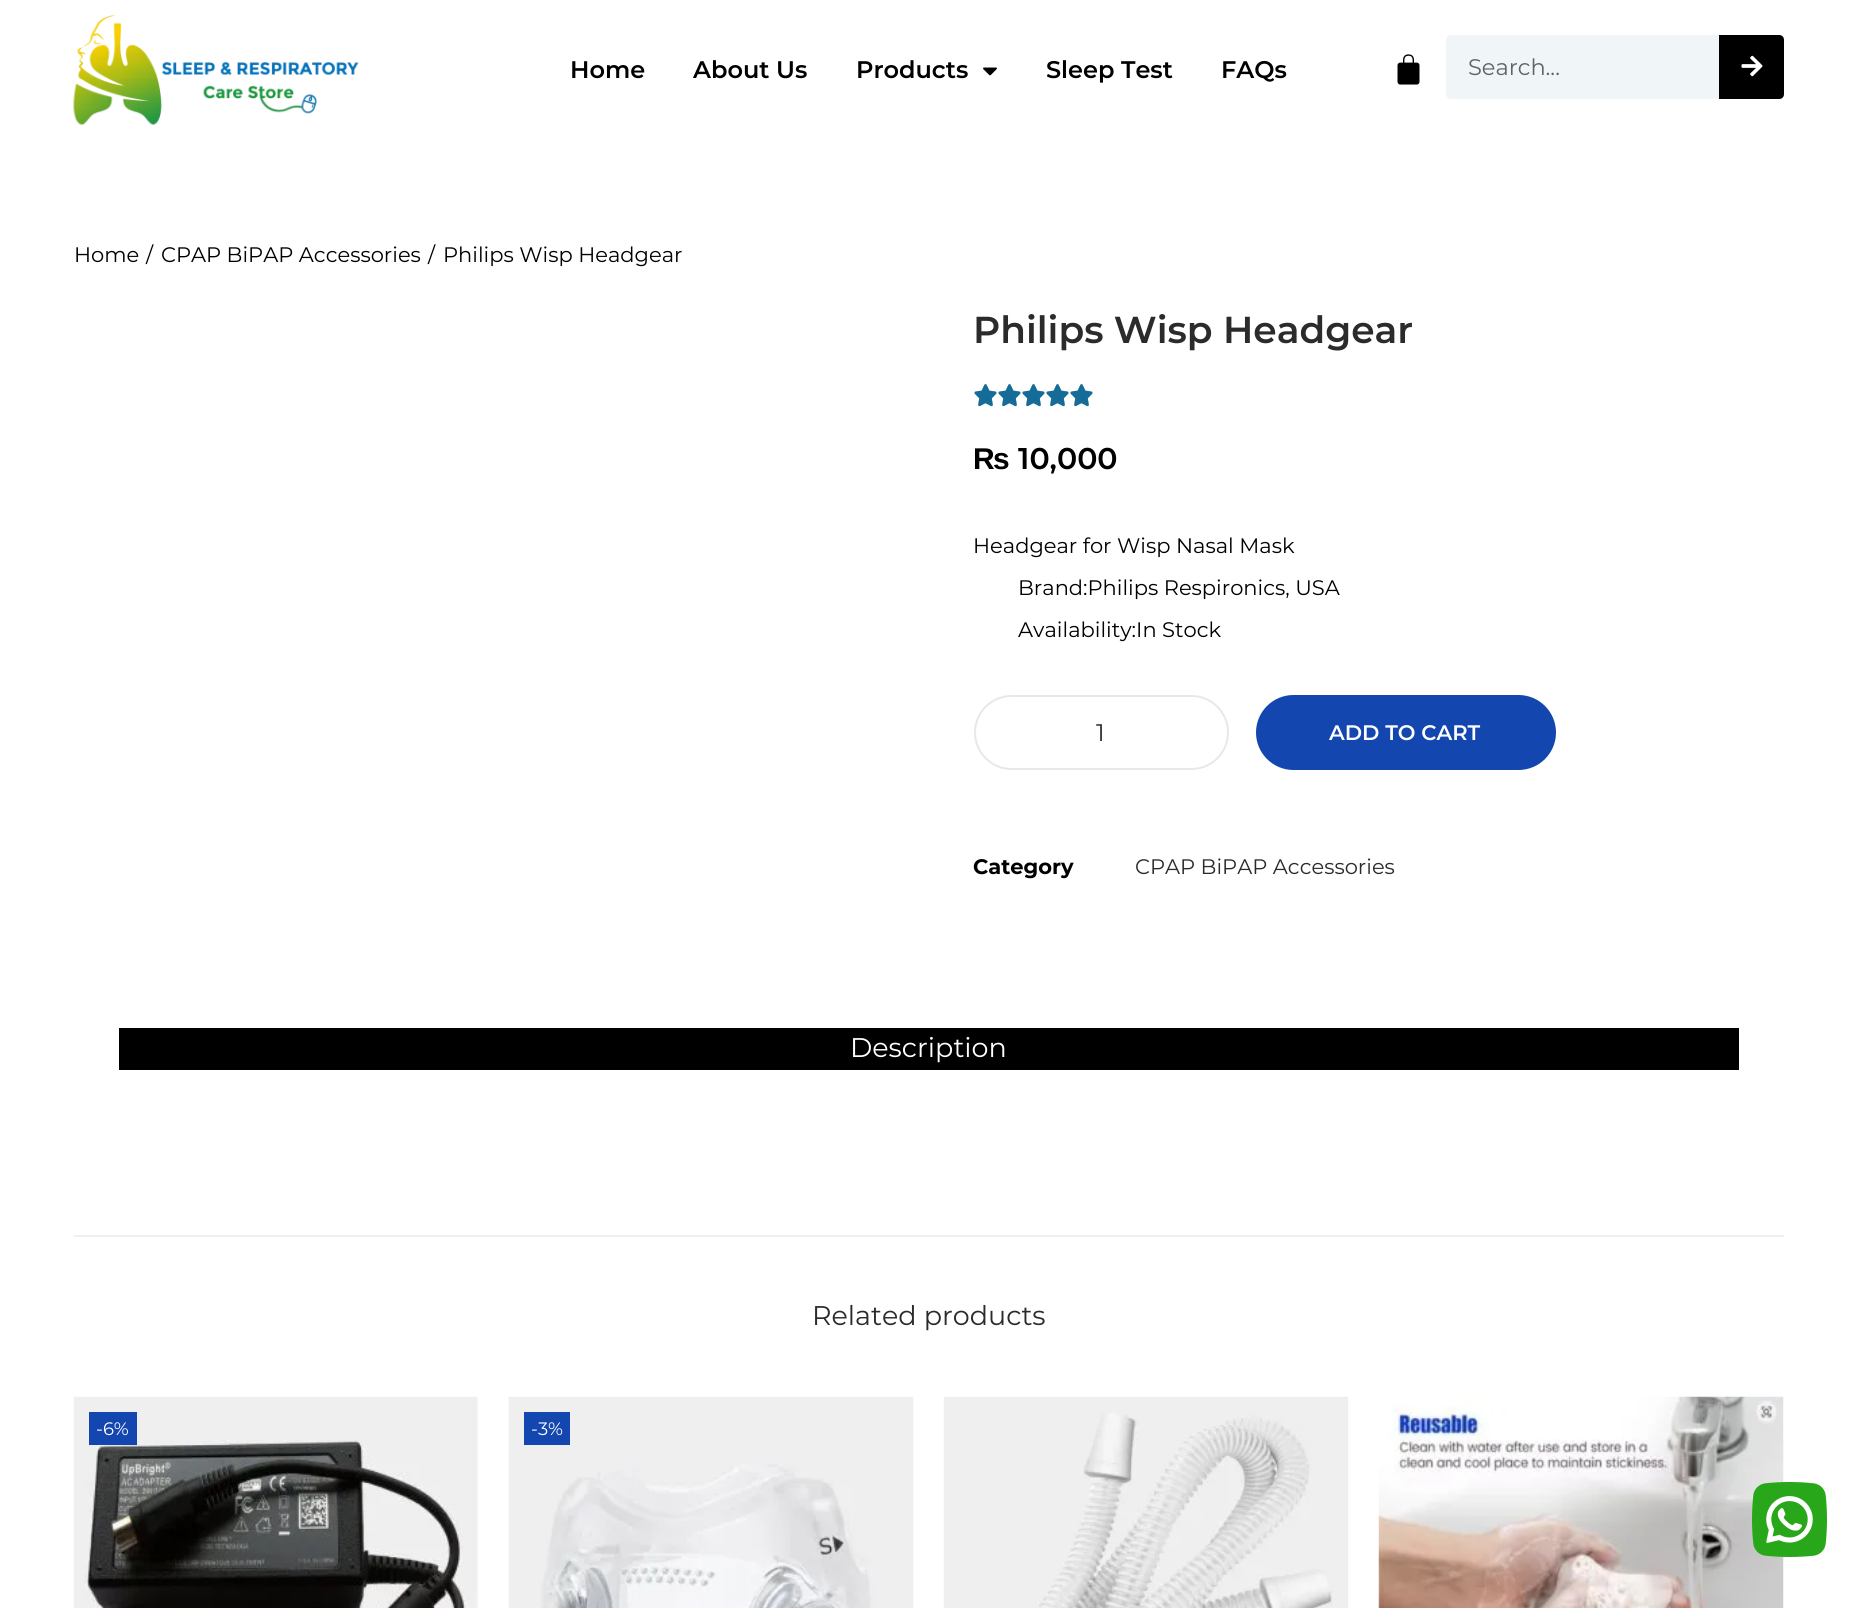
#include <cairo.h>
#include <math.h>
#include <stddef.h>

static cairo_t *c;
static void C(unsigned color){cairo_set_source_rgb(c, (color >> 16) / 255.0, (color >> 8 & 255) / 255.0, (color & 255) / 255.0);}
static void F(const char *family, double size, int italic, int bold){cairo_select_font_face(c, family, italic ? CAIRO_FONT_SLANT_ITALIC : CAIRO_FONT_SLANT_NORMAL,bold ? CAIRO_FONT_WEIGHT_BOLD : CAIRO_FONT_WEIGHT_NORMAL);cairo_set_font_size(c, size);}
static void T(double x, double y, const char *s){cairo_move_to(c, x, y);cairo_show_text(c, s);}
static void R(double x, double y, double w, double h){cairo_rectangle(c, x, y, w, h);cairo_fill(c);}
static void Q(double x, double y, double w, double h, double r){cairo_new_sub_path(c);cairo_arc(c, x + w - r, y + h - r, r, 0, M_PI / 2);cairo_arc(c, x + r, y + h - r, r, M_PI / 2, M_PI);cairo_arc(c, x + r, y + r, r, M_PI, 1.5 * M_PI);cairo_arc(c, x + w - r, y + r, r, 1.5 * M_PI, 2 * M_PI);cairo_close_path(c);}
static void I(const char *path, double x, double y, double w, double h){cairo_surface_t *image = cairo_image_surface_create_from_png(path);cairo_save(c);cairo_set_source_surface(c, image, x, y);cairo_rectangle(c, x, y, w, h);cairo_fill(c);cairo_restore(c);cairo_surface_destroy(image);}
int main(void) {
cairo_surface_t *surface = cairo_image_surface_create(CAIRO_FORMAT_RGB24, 1857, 1608);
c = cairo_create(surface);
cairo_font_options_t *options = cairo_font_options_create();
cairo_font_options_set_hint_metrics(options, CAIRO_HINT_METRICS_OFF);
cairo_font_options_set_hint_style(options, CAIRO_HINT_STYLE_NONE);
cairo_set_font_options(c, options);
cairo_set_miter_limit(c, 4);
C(0xffffff);
cairo_paint(c);
I("1.png",73,15,286,110);
F("Montserrat SemiBold",24,0,0);
C(0x000000);
T(570,78,"Home");
T(693,78,"About Us");
T(856,78,"Products");
I("2.png",983,67,14,9);
T(1046,78,"Sleep Test");
T(1221,78,"FAQs");
I("3.png",1397,54,23,31);
C(0xf0f6f8);
Q(1446,35,338,64,5);
cairo_fill(c);
F("Montserrat",22.5,0,0);
C(0x606263);
T(1468,75,"Search...");
C(0x000000);
cairo_new_path(c);
cairo_move_to(c,1719,35);
cairo_line_to(c,1779,35);
cairo_curve_to(c,1782,35,1784,37,1784,40);
cairo_line_to(c,1784,94);
cairo_curve_to(c,1784,97,1782,99,1779,99);
cairo_line_to(c,1719,99);
cairo_close_path(c);
cairo_fill(c);
I("4.png",1741,55,22,22);
I("11.png",1378,1396,406,212);
I("5.png",1752,1482,75,75);
F("Montserrat",21,0,0);
T(74,262,"Home");
T(146,262,"/");
T(161,262,"CPAP BiPAP Accessories");
T(428,262,"/");
T(443,262,"Philips Wisp Headgear");
F("Montserrat SemiBold",37.5,0,0);
C(0x2b2b2b);
T(973,343,"Philips Wisp Headgear");
I("6.png",974,384,23,23);
I("7.png",974,384,23,23);
I("6.png",998,384,23,23);
I("7.png",998,384,23,23);
I("6.png",1022,384,23,23);
I("7.png",1022,384,23,23);
I("6.png",1046,384,23,23);
I("7.png",1046,384,23,23);
I("6.png",1070,384,23,23);
I("7.png",1070,384,23,23);
F("Liberation Sans",30,0,1);
C(0x000000);
T(973,469,"₨");
F("Montserrat SemiBold",30,0,0);
T(1018,469,"10,000");
F("Montserrat",21,0,0);
T(973,553,"Headgear for Wisp Nasal Mask");
T(1018,595,"Brand:Philips Respironics, USA");
T(1018,637,"Availability:In Stock");
Q(975,696,253,73,36.5);
C(0xe8e8e8);
cairo_stroke(c);
F("Montserrat",24,0,0);
C(0x2b2b2b);
T(1096,741,"1");
C(0x1346af);
Q(1256,695,300,75,37.5);
cairo_fill(c);
F("Montserrat SemiBold",21,0,0);
C(0xffffff);
T(1329,740,"ADD TO CART");
F("Montserrat",21,0,1);
C(0x000000);
T(973,874,"Category");
F("Montserrat",21,0,0);
C(0x2b2b2b);
T(1135,874,"CPAP BiPAP Accessories");
C(0x000000);
R(119,1028,1620,42);
F("Montserrat",27,0,0);
C(0xffffff);
T(850,1057,"Description");
C(0xefefef);
R(74,1235,1710,2);
C(0x2b2b2b);
T(812,1325,"Related products");
I("8.png",73,1396,405,212);
C(0x1346af);
R(89,1412,48,33);
F("Montserrat",18,0,0);
C(0xffffff);
T(96,1435,"-6%");
I("9.png",508,1396,406,212);
C(0x1346af);
R(524,1412,46,33);
C(0xffffff);
T(531,1435,"-3%");
I("10.png",943,1396,406,212);
cairo_surface_write_to_png(surface, "o.png");
cairo_font_options_destroy(options);
cairo_destroy(c);
cairo_surface_destroy(surface);
return 0;
}
